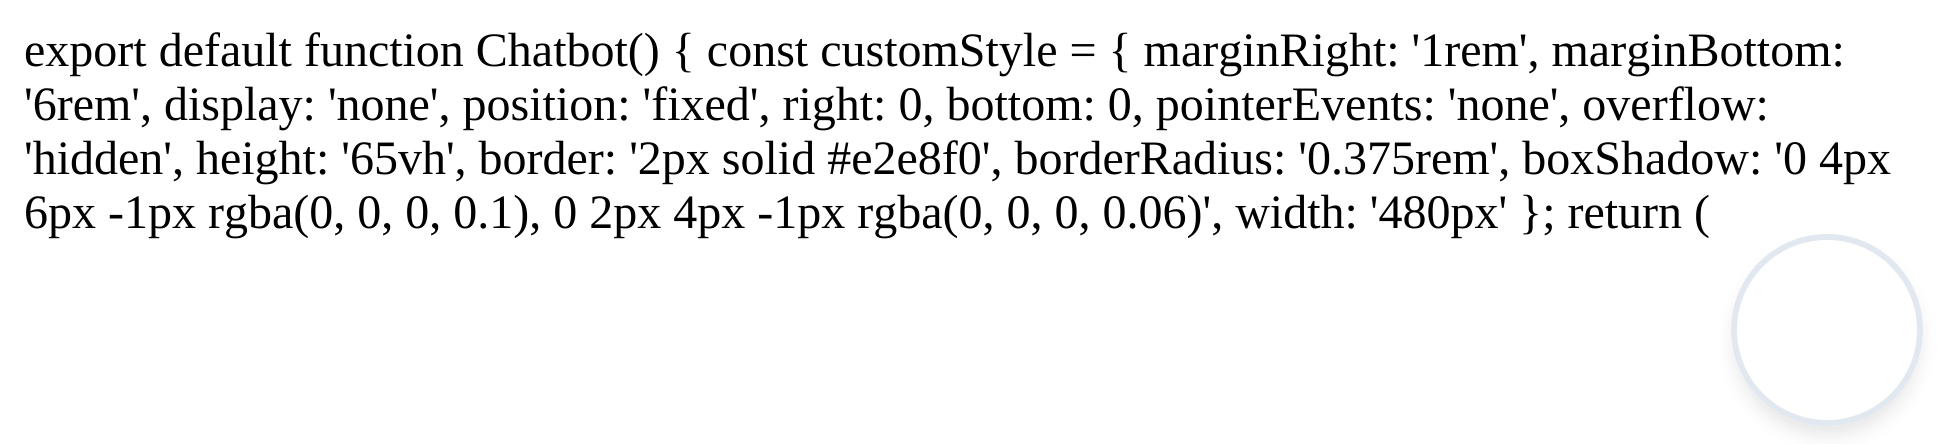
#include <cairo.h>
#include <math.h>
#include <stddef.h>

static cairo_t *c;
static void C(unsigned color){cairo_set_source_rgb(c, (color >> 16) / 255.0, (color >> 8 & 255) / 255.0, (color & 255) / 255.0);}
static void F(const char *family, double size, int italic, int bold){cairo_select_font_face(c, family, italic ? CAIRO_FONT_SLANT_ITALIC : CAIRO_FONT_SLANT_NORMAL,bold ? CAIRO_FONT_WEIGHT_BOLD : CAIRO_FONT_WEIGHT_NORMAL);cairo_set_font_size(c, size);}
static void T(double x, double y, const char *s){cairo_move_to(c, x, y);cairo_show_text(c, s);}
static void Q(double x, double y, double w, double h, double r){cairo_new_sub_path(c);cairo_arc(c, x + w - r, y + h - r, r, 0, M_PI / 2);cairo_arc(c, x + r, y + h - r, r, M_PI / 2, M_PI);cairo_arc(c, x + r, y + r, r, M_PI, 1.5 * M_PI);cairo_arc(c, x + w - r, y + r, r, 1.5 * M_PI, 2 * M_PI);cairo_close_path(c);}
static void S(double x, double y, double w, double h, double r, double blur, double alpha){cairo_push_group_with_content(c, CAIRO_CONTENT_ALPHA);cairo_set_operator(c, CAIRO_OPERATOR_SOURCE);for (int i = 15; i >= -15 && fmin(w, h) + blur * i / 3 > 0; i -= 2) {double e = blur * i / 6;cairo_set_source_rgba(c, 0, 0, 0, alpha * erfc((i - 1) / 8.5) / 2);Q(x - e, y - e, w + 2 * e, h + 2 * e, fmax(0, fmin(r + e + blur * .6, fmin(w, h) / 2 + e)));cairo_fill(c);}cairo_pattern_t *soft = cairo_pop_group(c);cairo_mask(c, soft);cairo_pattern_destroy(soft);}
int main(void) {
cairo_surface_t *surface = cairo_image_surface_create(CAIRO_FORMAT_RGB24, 1940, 444);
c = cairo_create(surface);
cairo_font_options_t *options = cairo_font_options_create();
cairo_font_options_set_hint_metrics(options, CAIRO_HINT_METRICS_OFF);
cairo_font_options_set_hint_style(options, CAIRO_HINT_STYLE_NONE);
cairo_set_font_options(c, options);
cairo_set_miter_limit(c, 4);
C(0xffffff);
cairo_paint(c);
F("Liberation Serif",48,0,0);
C(0x000000);
T(24,66,"export default function Chatbot() { const customStyle = { marginRight: '1rem', marginBottom:");
T(24,120,"'6rem', display: 'none', position: 'fixed', right: 0, bottom: 0, pointerEvents: 'none', overflow:");
T(24,174,"'hidden', height: '65vh', border: '2px solid #e2e8f0', borderRadius: '0.375rem', boxShadow: '0 4px");
T(24,228,"6px -1px rgba(0, 0, 0, 0.1), 0 2px 4px -1px rgba(0, 0, 0, 0.06)', width: '480px' }; return (");
cairo_save(c);
cairo_set_fill_rule(c,CAIRO_FILL_RULE_EVEN_ODD);
cairo_new_path(c);
cairo_move_to(c,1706,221);
cairo_line_to(c,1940,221);
cairo_line_to(c,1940,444);
cairo_line_to(c,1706,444);
cairo_close_path(c);
cairo_move_to(c,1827,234);
cairo_curve_to(c,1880,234,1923,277,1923,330);
cairo_curve_to(c,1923,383,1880,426,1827,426);
cairo_curve_to(c,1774,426,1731,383,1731,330);
cairo_curve_to(c,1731,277,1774,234,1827,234);
cairo_close_path(c);
cairo_clip(c);
C(0x000000);
S(1734,249,186,186,93,9,.1);
cairo_restore(c);
cairo_arc(c,1827,330,93,0,2 * M_PI);
C(0xe2e8f0);
cairo_set_line_width(c,6);
cairo_stroke(c);
cairo_surface_write_to_png(surface, "o.png");
cairo_font_options_destroy(options);
cairo_destroy(c);
cairo_surface_destroy(surface);
return 0;
}
